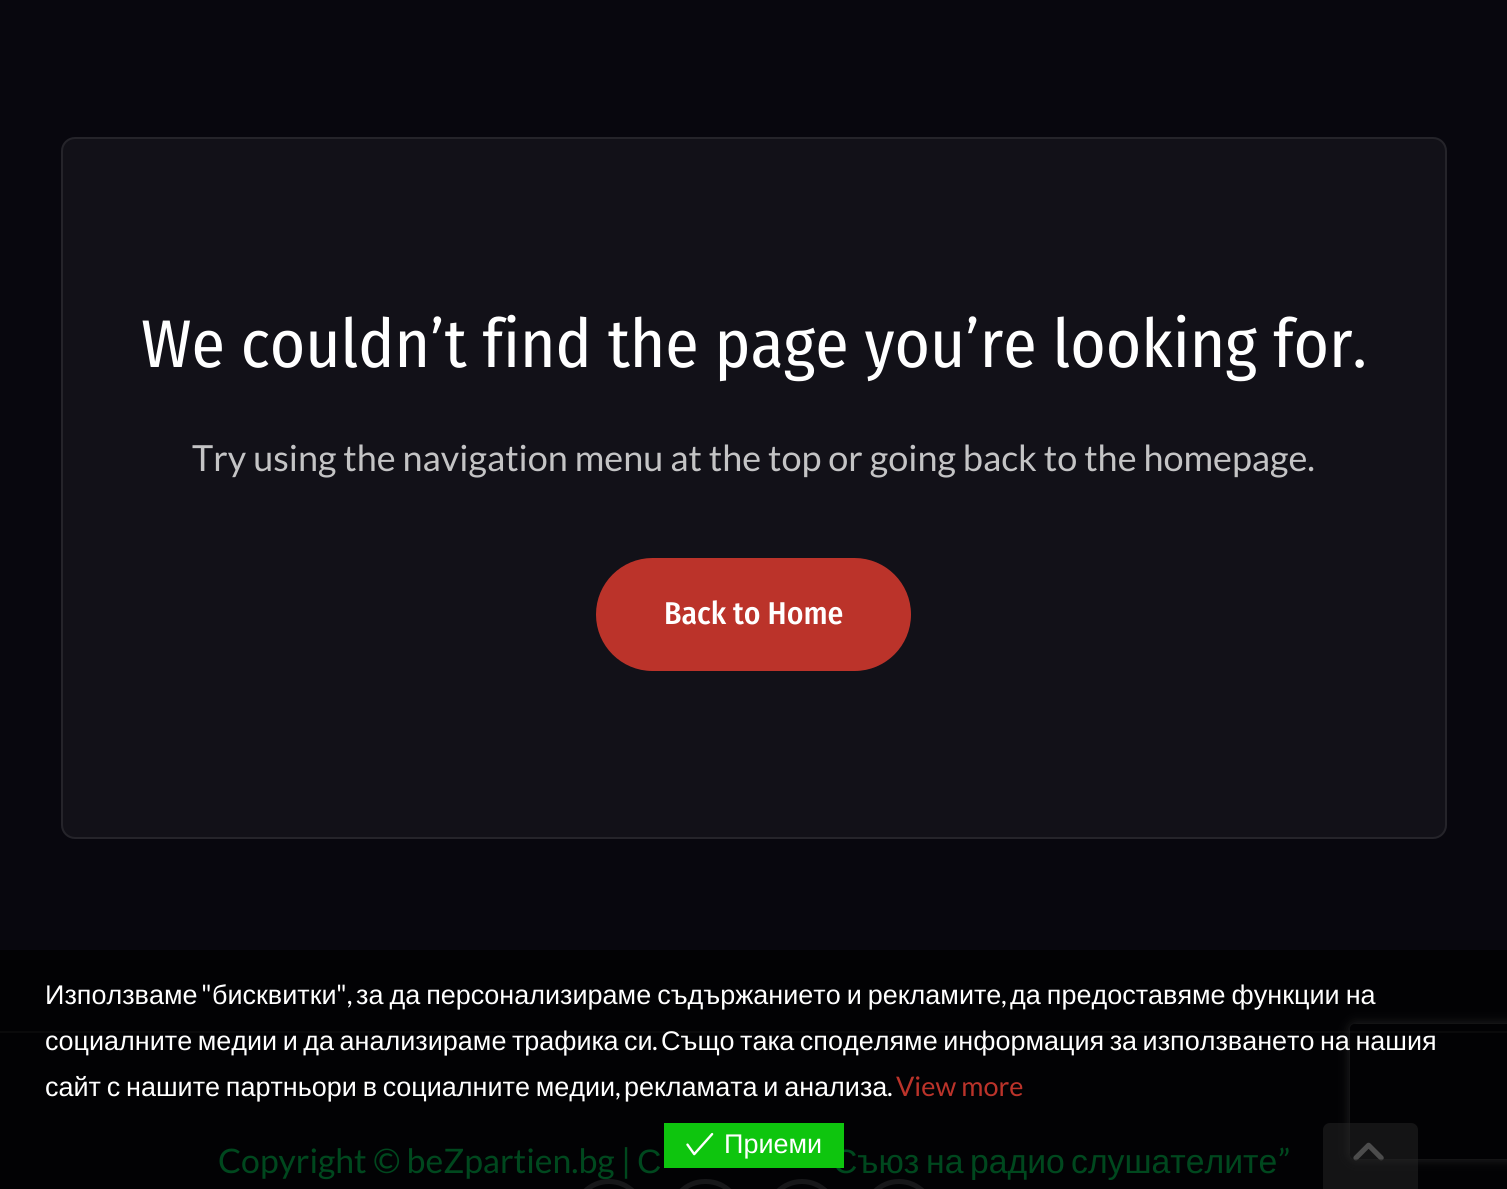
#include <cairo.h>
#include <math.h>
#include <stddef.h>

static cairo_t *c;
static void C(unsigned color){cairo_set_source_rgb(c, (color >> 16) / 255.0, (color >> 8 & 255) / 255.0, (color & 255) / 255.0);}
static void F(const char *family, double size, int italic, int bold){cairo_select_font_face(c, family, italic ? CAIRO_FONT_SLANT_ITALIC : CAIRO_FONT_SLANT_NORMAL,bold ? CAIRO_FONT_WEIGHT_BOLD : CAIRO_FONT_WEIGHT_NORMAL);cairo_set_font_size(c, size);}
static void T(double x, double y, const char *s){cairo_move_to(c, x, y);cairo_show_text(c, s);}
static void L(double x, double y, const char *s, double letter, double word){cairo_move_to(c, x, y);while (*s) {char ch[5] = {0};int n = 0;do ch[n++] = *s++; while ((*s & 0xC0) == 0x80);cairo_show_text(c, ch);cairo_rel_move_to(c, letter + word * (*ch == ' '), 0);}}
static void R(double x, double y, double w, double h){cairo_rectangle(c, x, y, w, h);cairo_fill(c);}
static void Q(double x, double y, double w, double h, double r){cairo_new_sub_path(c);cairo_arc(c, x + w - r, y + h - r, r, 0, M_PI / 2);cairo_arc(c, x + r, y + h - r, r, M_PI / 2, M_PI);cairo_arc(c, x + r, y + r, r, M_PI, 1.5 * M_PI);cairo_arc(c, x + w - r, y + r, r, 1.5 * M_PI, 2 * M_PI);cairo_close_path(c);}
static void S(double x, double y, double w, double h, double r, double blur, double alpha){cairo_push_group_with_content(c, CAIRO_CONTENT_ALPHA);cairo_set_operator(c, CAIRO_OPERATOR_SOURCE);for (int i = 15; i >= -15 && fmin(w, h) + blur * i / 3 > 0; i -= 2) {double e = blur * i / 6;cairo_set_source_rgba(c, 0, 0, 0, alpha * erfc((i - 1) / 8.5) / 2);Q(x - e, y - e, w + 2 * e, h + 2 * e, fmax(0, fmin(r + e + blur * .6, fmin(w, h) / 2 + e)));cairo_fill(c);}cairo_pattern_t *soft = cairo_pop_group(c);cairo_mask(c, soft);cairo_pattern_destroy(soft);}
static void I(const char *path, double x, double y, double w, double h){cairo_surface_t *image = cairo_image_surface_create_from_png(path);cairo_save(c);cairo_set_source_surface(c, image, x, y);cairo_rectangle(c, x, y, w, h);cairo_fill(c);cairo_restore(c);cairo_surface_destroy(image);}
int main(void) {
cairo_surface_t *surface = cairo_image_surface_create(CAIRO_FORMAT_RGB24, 1507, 1189);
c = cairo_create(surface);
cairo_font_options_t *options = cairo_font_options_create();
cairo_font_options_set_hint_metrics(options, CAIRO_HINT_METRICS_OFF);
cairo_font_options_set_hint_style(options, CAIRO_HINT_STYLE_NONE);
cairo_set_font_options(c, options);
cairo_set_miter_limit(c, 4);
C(0x08070e);
cairo_paint(c);
C(0x020204);
R(0,950,1507,239);
C(0x121118);
Q(61,137,1386,702,14);
cairo_fill(c);
Q(62,138,1384,700,13);
cairo_set_source_rgba(c,1,1,1,0.08);
cairo_stroke(c);
F("Fira Sans Condensed",67.5,0,0);
C(0xffffff);
T(141,367,"We couldn’t find the page you’re looking for.");
F("Lato",36,0,0);
C(0xc4c4c5);
T(192,471,"Try using the navigation menu at the top or going back to the homepage.");
C(0xbb332a);
Q(596,558,315,113,56.5);
cairo_fill(c);
F("Fira Sans Condensed Medium",31.5,0,0);
C(0xffffff);
T(664,624,"Back to Home");
C(0x0a0a0b);
R(0,1031,1507,2);
F("Lato",33.75,0,0);
C(0x00481e);
T(218,1173,"Copyright © beZpartien.bg |");
F("Liberation Sans",33.75,0,0);
T(637,1173,"С");
T(833,1173,"Съюз");
T(926,1173,"на");
T(970,1173,"радио");
T(1071,1173,"слушателите");
F("Lato",33.75,0,0);
T(1278,1173,"”");
Q(574.5,1181.5,69,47,34.5);
C(0x171719);
cairo_set_line_width(c,5);
cairo_stroke(c);
Q(670.5,1181.5,70,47,34.5);
cairo_stroke(c);
Q(767.5,1181.5,69,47,34.5);
cairo_stroke(c);
Q(864.5,1181.5,69,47,34.5);
cairo_stroke(c);
F("Liberation Sans",27,0,0);
C(0xffffff);
T(45,1004,"Използваме");
F("Lato",27,0,0);
T(201,1004,"\"");
F("Liberation Sans",27,0,0);
T(212,1004,"бисквитки");
F("Lato",27,0,0);
T(336,1004,"\",");
F("Liberation Sans",27,0,0);
L(356,1004,"за да персонализираме съдържанието и рекламите",0,-1.5);
F("Lato",27,0,0);
T(1001,1004,",");
C(0x141415);
cairo_new_path(c);
cairo_move_to(c,1330,1123);
cairo_line_to(c,1411,1123);
cairo_curve_to(c,1415,1123,1418,1126,1418,1130);
cairo_line_to(c,1418,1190);
cairo_line_to(c,1323,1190);
cairo_line_to(c,1323,1130);
cairo_curve_to(c,1323,1126,1326,1123,1330,1123);
cairo_close_path(c);
cairo_fill(c);
I("2.png",1353,1142,31,19);
cairo_save(c);
cairo_set_fill_rule(c,CAIRO_FILL_RULE_EVEN_ODD);
cairo_new_path(c);
cairo_move_to(c,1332,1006);
cairo_line_to(c,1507,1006);
cairo_line_to(c,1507,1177);
cairo_line_to(c,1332,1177);
cairo_close_path(c);
cairo_move_to(c,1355,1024);
cairo_line_to(c,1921,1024);
cairo_curve_to(c,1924,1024,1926,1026,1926,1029);
cairo_line_to(c,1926,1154);
cairo_curve_to(c,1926,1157,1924,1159,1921,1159);
cairo_line_to(c,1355,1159);
cairo_curve_to(c,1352,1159,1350,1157,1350,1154);
cairo_line_to(c,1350,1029);
cairo_curve_to(c,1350,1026,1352,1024,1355,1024);
cairo_close_path(c);
cairo_clip(c);
C(0x262626);
S(1350,1024,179,135,5,5.5,1);
cairo_restore(c);
F("Liberation Sans",27,0,0);
C(0xffffff);
L(1010,1004,"да предоставяме функции на",0,-1.5);
L(45,1050,"социалните медии и да анализираме трафика си",0,-2);
F("Lato",27,0,0);
T(652,1050,".");
F("Liberation Sans",27,0,0);
L(661,1050,"Също така споделяме информация за използването на нашия",0,-2);
L(45,1096,"сайт с нашите партньори в социалните медии",0,-1.75);
F("Lato",27,0,0);
T(615,1096,",");
F("Liberation Sans",27,0,0);
L(624,1096,"рекламата и анализа",0,-1.75);
F("Lato",27,0,0);
T(887,1096,".");
C(0xbb332a);
T(896,1096,"View more");
C(0x0ec50e);
R(664,1123,180,45);
I("1.png",686,1132,28,24);
F("Liberation Sans",27,0,0);
C(0xffffff);
T(724,1153,"Приеми");
cairo_surface_write_to_png(surface, "o.png");
cairo_font_options_destroy(options);
cairo_destroy(c);
cairo_surface_destroy(surface);
return 0;
}
